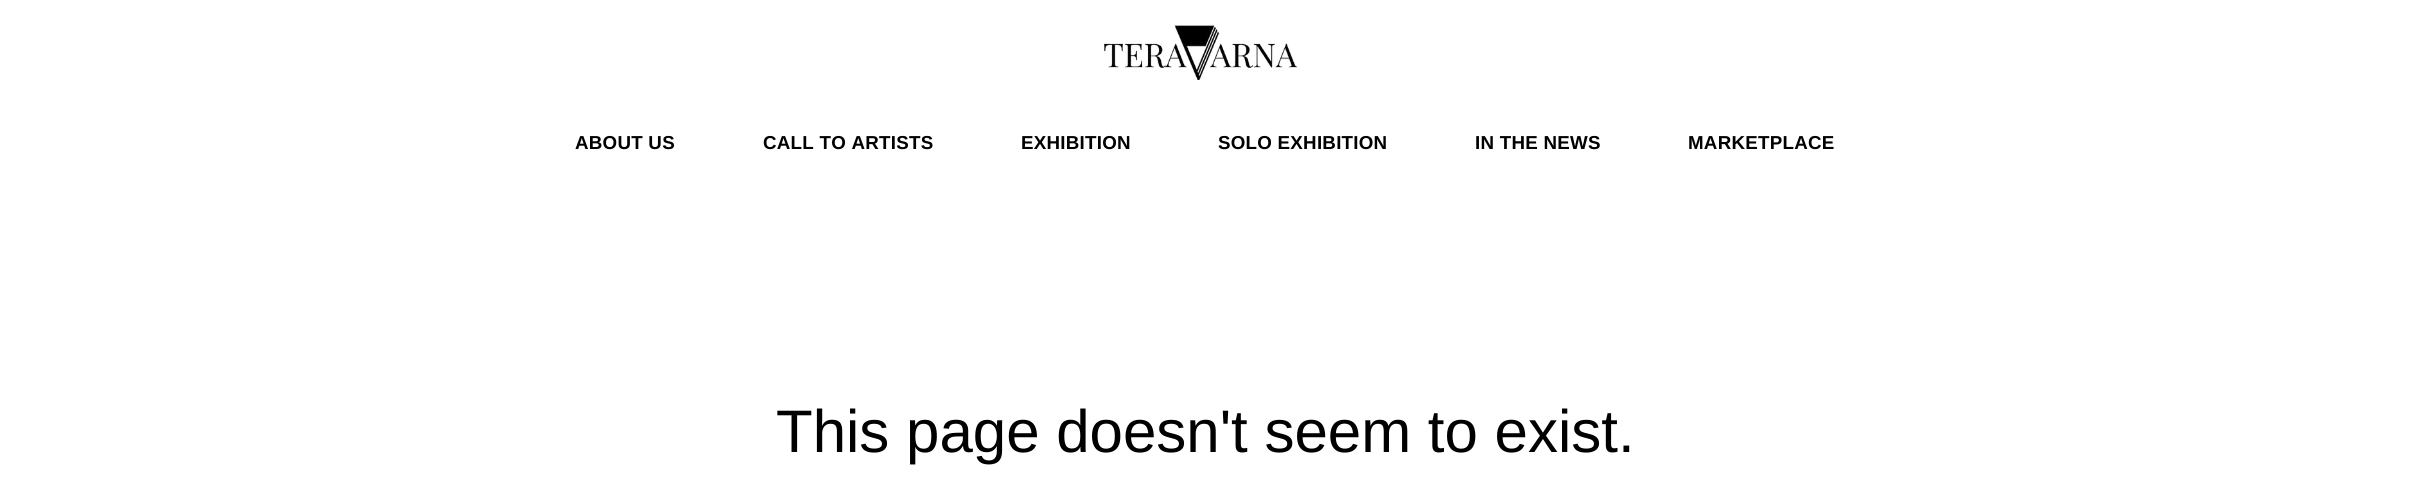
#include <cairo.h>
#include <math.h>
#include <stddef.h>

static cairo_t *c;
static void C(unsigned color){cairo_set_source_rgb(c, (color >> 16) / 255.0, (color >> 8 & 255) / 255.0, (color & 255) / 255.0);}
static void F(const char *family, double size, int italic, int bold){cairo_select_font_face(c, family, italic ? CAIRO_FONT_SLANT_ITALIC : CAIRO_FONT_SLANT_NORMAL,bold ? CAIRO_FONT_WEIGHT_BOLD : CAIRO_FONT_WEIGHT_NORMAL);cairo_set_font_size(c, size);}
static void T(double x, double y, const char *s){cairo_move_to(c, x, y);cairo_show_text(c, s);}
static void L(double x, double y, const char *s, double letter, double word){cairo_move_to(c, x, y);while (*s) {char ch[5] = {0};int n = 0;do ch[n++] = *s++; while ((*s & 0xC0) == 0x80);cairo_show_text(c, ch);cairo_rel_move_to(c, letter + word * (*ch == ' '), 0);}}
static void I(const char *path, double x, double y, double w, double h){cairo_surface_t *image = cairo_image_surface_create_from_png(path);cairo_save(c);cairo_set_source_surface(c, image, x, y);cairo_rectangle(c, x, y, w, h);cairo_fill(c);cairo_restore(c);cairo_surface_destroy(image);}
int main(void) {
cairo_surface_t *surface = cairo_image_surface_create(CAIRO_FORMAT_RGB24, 2410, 491);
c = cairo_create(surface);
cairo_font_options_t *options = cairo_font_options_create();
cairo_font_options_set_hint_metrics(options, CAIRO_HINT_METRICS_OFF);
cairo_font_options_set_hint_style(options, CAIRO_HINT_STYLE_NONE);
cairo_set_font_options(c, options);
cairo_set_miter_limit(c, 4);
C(0xffffff);
cairo_paint(c);
I("1.png",1104,25,193,55);
F("Liberation Sans",18.75,0,1);
C(0x000000);
L(575,149,"ABOUT US",.25,0);
L(763,149,"CALL TO ARTISTS",.25,0);
L(1021,149,"EXHIBITION",.25,0);
L(1218,149,"SOLO EXHIBITION",.25,0);
L(1475,149,"IN THE NEWS",.25,0);
L(1688,149,"MARKETPLACE",.25,0);
F("Liberation Sans",60,0,0);
T(776,452,"This page doesn't seem to exist.");
cairo_surface_write_to_png(surface, "o.png");
cairo_font_options_destroy(options);
cairo_destroy(c);
cairo_surface_destroy(surface);
return 0;
}
